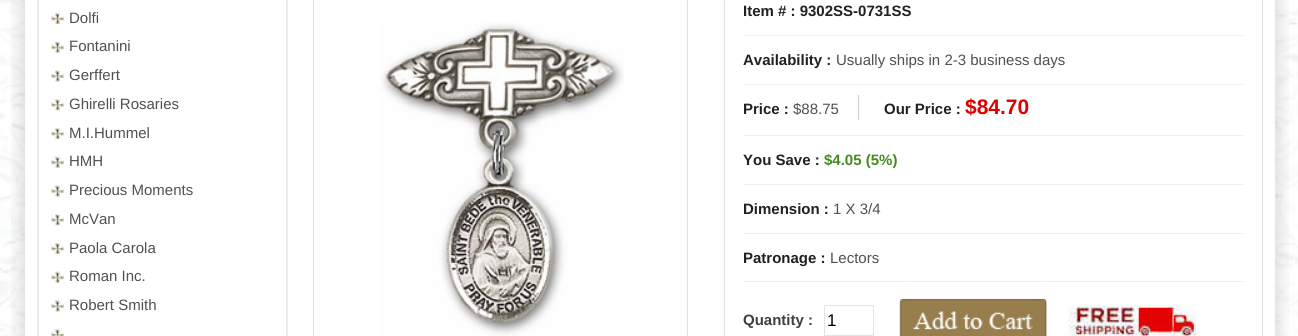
#include <cairo.h>
#include <math.h>
#include <stddef.h>

static cairo_t *c;
static void C(unsigned color){cairo_set_source_rgb(c, (color >> 16) / 255.0, (color >> 8 & 255) / 255.0, (color & 255) / 255.0);}
static void F(const char *family, double size, int italic, int bold){cairo_select_font_face(c, family, italic ? CAIRO_FONT_SLANT_ITALIC : CAIRO_FONT_SLANT_NORMAL,bold ? CAIRO_FONT_WEIGHT_BOLD : CAIRO_FONT_WEIGHT_NORMAL);cairo_set_font_size(c, size);}
static void T(double x, double y, const char *s){cairo_move_to(c, x, y);cairo_show_text(c, s);}
static void R(double x, double y, double w, double h){cairo_rectangle(c, x, y, w, h);cairo_fill(c);}
static void I(const char *path, double x, double y, double w, double h){cairo_surface_t *image = cairo_image_surface_create_from_png(path);cairo_save(c);cairo_set_source_surface(c, image, x, y);cairo_rectangle(c, x, y, w, h);cairo_fill(c);cairo_restore(c);cairo_surface_destroy(image);}
int main(void) {
cairo_surface_t *surface = cairo_image_surface_create(CAIRO_FORMAT_RGB24, 1298, 336);
c = cairo_create(surface);
cairo_font_options_t *options = cairo_font_options_create();
cairo_font_options_set_hint_metrics(options, CAIRO_HINT_METRICS_OFF);
cairo_font_options_set_hint_style(options, CAIRO_HINT_STYLE_NONE);
cairo_set_font_options(c, options);
cairo_set_miter_limit(c, 4);
C(0xffffff);
cairo_paint(c);
I("1.png",0,0,1298,336);
I("2.png",11,0,1278,336);
I("3.png",37,0,251,336);
I("4.png",51,12,13,12);
F("Liberation Sans",15,0,0);
C(0x505050);
T(69,23,"Dolfi");
I("5.png",51,41,13,12);
T(69,51,"Fontanini");
I("6.png",51,70,13,12);
T(69,80,"Gerffert");
I("7.png",51,99,13,12);
T(69,109,"Ghirelli Rosaries");
I("4.png",51,127,13,12);
T(69,138,"M.I.Hummel");
I("5.png",51,156,13,12);
T(69,166,"HMH");
I("6.png",51,185,13,12);
T(69,195,"Precious Moments");
I("7.png",51,214,13,12);
T(69,224,"McVan");
I("4.png",51,242,13,12);
T(69,253,"Paola Carola");
I("5.png",51,271,13,12);
T(69,281,"Roman Inc.");
I("6.png",51,300,13,12);
T(69,310,"Robert Smith");
I("8.png",51,329,13,7);
cairo_rectangle(c,313.5,-.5,374,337);
C(0xdfdfdf);
cairo_set_line_width(c,1);
cairo_stroke(c);
I("9.png",380,23,244,313);
cairo_rectangle(c,724.5,-.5,538,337);
cairo_stroke(c);
C(0xeeeeee);
R(744,35,499,1);
F("Liberation Sans",15,0,1);
C(0x212121);
T(743,16,"Item # : 9302SS-0731SS");
C(0xeeeeee);
R(744,84,499,1);
C(0x212121);
T(743,65,"Availability :");
F("Liberation Sans",15,0,0);
C(0x505050);
T(836,65,"Usually ships in 2-3 business days");
C(0xeeeeee);
R(744,135,499,1);
F("Liberation Sans",15,0,1);
C(0x212121);
T(743,114,"Price :");
F("Liberation Sans",15,0,0);
C(0x505050);
T(793,114,"$88.75");
C(0xcdcdcd);
R(858,95,1,25);
F("Liberation Sans",15,0,1);
C(0x212121);
T(884,114,"Our Price :");
F("Liberation Sans",21,0,1);
C(0xde0000);
T(965,114,"$84.70");
C(0xeeeeee);
R(744,184,499,1);
F("Liberation Sans",15,0,1);
C(0x212121);
T(743,165,"You Save :");
C(0x488a1e);
T(824,165,"$4.05 (5%)");
C(0xeeeeee);
R(744,233,499,1);
C(0x212121);
T(743,214,"Dimension :");
F("Liberation Sans",15,0,0);
C(0x505050);
T(833,214,"1 X 3/4");
C(0xeeeeee);
R(744,281,499,1);
F("Liberation Sans",15,0,1);
C(0x212121);
T(743,263,"Patronage :");
F("Liberation Sans",15,0,0);
C(0x505050);
T(830,263,"Lectors");
F("Liberation Sans",15,0,1);
C(0x403f3f);
T(743,325,"Quantity :");
cairo_rectangle(c,824.5,305.5,49,30);
C(0xe3e3e3);
cairo_stroke(c);
F("Liberation Sans",17,0,0);
C(0x000000);
T(827,326,"1");
I("10.png",898,299,150,37);
I("11.png",1068,305,129,31);
cairo_surface_write_to_png(surface, "o.png");
cairo_font_options_destroy(options);
cairo_destroy(c);
cairo_surface_destroy(surface);
return 0;
}
